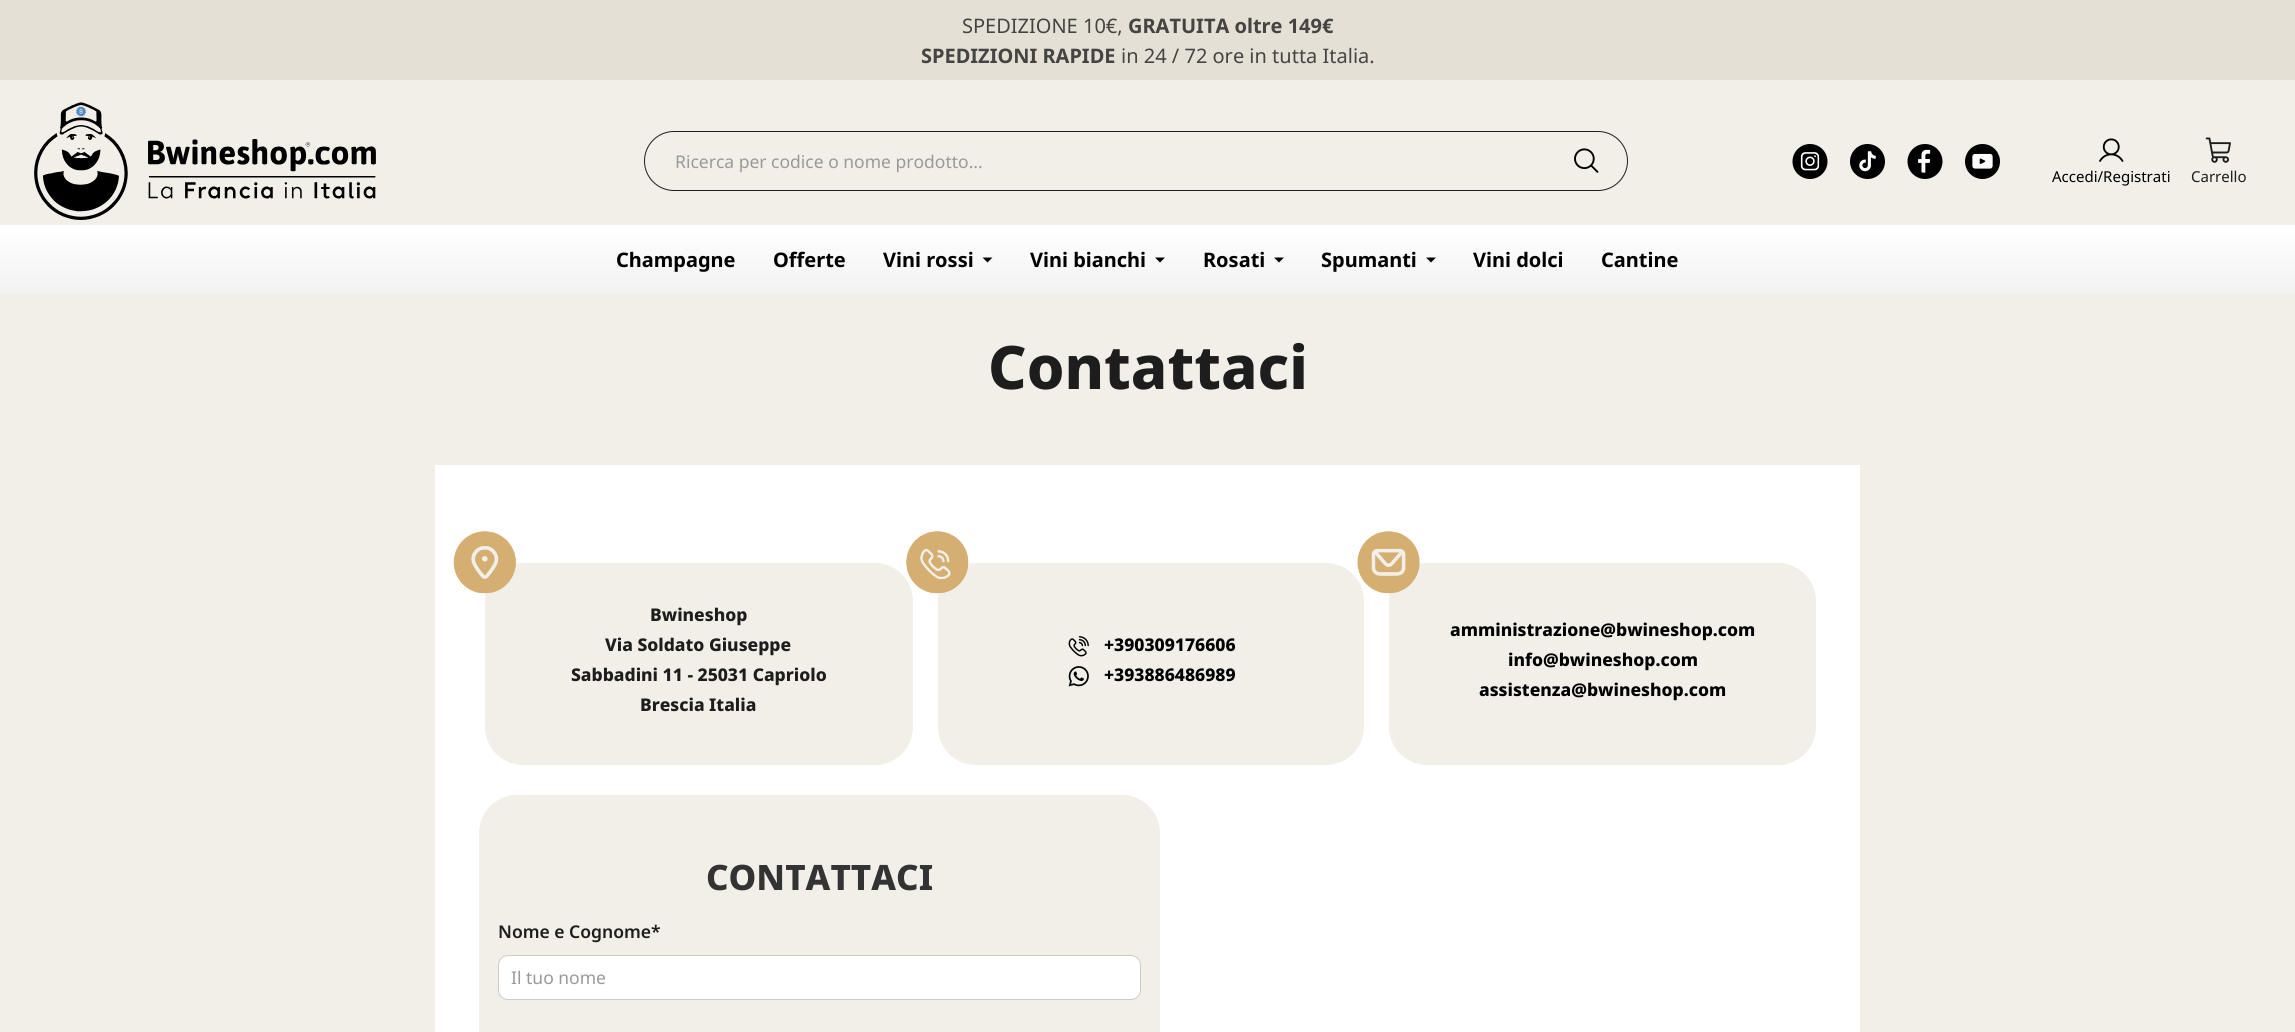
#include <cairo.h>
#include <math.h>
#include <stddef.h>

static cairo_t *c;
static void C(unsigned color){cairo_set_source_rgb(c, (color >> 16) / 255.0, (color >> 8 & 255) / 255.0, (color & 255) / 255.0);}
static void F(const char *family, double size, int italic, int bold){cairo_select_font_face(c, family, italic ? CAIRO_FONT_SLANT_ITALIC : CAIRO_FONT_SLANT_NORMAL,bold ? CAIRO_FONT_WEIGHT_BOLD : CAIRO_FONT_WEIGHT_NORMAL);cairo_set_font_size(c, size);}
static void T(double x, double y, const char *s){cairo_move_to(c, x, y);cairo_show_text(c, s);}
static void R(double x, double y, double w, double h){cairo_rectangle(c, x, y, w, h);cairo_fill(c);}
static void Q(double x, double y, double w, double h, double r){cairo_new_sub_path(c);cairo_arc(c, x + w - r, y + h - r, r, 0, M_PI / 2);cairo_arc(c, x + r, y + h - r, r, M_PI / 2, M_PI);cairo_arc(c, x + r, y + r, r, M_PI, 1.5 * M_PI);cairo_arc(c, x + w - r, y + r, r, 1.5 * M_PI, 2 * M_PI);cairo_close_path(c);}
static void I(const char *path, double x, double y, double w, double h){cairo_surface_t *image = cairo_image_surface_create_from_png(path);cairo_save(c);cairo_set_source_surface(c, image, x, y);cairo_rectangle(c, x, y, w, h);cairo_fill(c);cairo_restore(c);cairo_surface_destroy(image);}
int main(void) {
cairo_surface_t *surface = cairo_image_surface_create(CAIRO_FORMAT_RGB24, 2295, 1032);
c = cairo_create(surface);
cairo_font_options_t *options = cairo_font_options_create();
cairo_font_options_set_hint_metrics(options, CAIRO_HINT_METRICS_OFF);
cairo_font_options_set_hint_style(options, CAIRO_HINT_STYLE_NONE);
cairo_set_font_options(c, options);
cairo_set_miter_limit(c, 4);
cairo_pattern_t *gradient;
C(0xf2efe9);
cairo_paint(c);
C(0xe5e0d6);
R(0,0,2295,80);
F("Noto Sans",20,0,0);
C(0x454442);
T(962,33,"SPEDIZIONE 10€,");
F("Noto Sans",20,0,1);
T(1128,33,"GRATUITA oltre 149€");
T(921,63,"SPEDIZIONI RAPIDE");
F("Noto Sans",20,0,0);
T(1121,63,"in 24 / 72 ore in tutta Italia.");
I("1.png",34,102,342,118);
Q(644.5,131.5,983,59,29.5);
C(0x1d1d1d);
cairo_set_line_width(c,1);
cairo_stroke(c);
F("Noto Sans",17.5,0,0);
C(0x999999);
T(675,168,"Ricerca per codice o nome prodotto...");
I("2.png",1574,148,25,25);
I("3.png",1792,144,36,35);
I("4.png",1850,144,35,35);
I("5.png",1907,144,36,35);
I("6.png",1965,144,35,35);
I("7.png",2099,138,25,24);
F("Noto Sans",15,0,0);
C(0x000000);
T(2052,182,"Accedi/Registrati");
I("8.png",2205,137,26,26);
C(0x1d1d1d);
T(2191,182,"Carrello");
gradient = cairo_pattern_create_linear(1148,225,1148,294);
cairo_pattern_add_color_stop_rgba(gradient,0,1,1,1,1);
cairo_pattern_add_color_stop_rgba(gradient,1,0.949,0.949,0.949,1);
cairo_set_source(c,gradient);
cairo_pattern_destroy(gradient);
R(0,225,2295,69);
F("Noto Sans",20,0,1);
C(0x000000);
T(616,267,"Champagne");
T(773,267,"Offerte");
T(883,267,"Vini rossi");
cairo_new_path(c);
cairo_move_to(c,982.5,257.5);
cairo_line_to(c,992.5,257.5);
cairo_line_to(c,987.5,262.5);
cairo_close_path(c);
cairo_fill(c);
T(1030,267,"Vini bianchi");
cairo_new_path(c);
cairo_move_to(c,1155,257.5);
cairo_line_to(c,1165,257.5);
cairo_line_to(c,1160,262.5);
cairo_close_path(c);
cairo_fill(c);
T(1203,267,"Rosati");
cairo_new_path(c);
cairo_move_to(c,1274,257.5);
cairo_line_to(c,1284,257.5);
cairo_line_to(c,1279,262.5);
cairo_close_path(c);
cairo_fill(c);
T(1321,267,"Spumanti");
cairo_new_path(c);
cairo_move_to(c,1426,257.5);
cairo_line_to(c,1436,257.5);
cairo_line_to(c,1431,262.5);
cairo_close_path(c);
cairo_fill(c);
T(1473,267,"Vini dolci");
T(1601,267,"Cantine");
F("Noto Sans ExtraBold",60,0,0);
C(0x1d1d1d);
T(988,389,"Contattaci");
C(0xffffff);
R(435,465,1425,567);
C(0xf2efe9);
Q(485,563,428,202,38);
cairo_fill(c);
I("9.png",453,531,64,63);
F("Noto Sans ExtraBold",17.5,0,0);
C(0x1d1d1d);
T(650,621,"Bwineshop");
T(605,651,"Via Soldato Giuseppe");
T(571,681,"Sabbadini 11 - 25031 Capriolo");
T(640,711,"Brescia Italia");
C(0xf2efe9);
Q(938,563,426,202,38);
cairo_fill(c);
I("10.png",906,531,63,63);
I("11.png",1068,636,21,21);
C(0x000000);
T(1104,651,"+390309176606");
I("12.png",1068,666,21,21);
T(1104,681,"+393886486989");
C(0xf2efe9);
Q(1389,563,427,202,38);
cairo_fill(c);
I("13.png",1357,531,63,63);
C(0x000000);
T(1450,636,"amministrazione@bwineshop.com");
T(1508,666,"info@bwineshop.com");
T(1479,696,"assistenza@bwineshop.com");
C(0xf2efe9);
Q(479,795,681,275,38);
cairo_fill(c);
F("Noto Sans ExtraBold",35,0,0);
C(0x333333);
T(706,890,"CONTATTACI");
F("Noto Sans SemiBold",17.5,0,0);
C(0x1d1d1d);
T(498,938,"Nome e Cognome*");
C(0xffffff);
Q(499,956,641,43,9);
cairo_fill(c);
Q(498.5,955.5,642,44,9.5);
cairo_set_source_rgba(c,0,0,0,0.15);
cairo_stroke(c);
F("Noto Sans",17.5,0,0);
C(0x999999);
T(511,984,"Il tuo nome");
cairo_surface_write_to_png(surface, "o.png");
cairo_font_options_destroy(options);
cairo_destroy(c);
cairo_surface_destroy(surface);
return 0;
}
